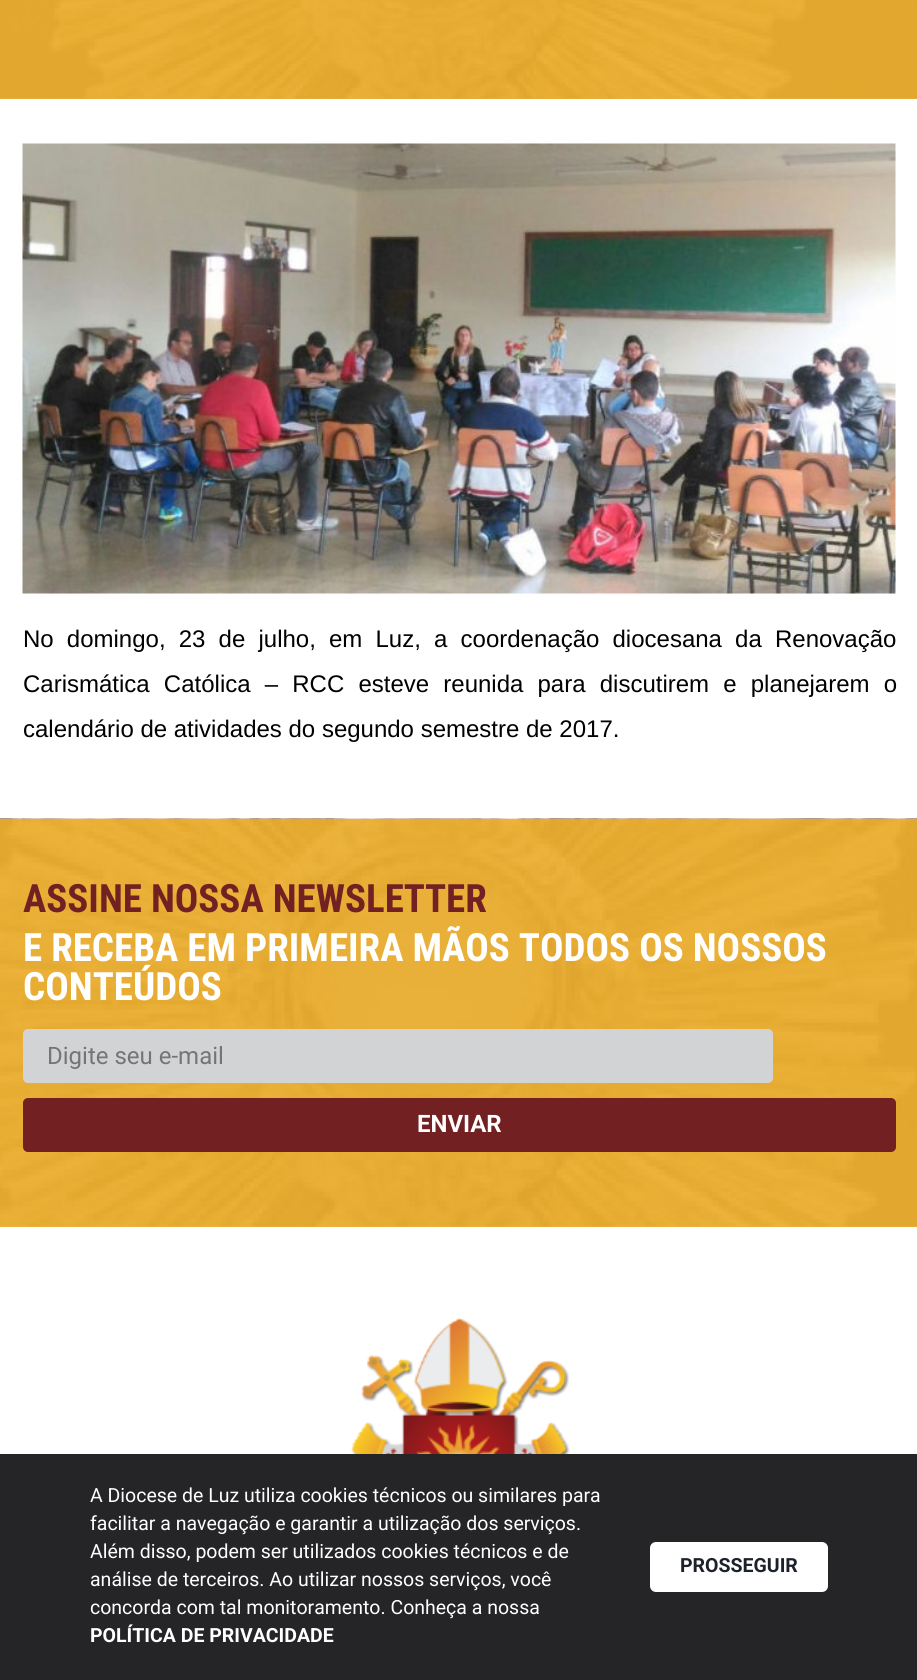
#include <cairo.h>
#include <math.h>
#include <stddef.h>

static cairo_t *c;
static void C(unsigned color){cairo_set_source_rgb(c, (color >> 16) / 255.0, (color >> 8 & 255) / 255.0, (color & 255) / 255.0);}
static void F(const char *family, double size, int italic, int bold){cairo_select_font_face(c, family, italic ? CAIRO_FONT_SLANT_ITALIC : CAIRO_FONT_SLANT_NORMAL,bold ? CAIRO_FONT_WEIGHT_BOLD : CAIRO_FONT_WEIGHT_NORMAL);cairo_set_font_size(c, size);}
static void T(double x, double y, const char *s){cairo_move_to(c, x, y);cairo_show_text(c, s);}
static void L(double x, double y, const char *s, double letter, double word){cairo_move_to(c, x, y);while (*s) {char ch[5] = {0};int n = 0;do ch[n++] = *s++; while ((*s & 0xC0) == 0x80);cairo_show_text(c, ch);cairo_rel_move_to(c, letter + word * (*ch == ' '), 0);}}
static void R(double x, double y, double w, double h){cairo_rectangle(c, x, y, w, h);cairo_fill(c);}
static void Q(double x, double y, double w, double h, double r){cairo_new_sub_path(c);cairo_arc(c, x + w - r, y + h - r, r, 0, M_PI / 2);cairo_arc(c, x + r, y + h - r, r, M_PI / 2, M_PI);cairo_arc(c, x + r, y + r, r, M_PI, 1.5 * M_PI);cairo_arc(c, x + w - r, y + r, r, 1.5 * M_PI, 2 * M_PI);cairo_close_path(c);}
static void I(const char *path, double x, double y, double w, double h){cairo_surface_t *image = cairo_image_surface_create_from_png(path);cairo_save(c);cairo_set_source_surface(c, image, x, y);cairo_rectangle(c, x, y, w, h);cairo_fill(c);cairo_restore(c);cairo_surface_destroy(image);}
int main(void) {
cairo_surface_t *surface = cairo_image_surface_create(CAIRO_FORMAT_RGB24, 917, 1680);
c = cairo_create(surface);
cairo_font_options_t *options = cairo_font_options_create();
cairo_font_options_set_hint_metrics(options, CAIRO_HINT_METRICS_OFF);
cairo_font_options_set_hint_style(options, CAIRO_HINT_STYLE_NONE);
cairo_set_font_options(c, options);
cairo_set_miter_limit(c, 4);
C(0xffffff);
cairo_paint(c);
C(0xeeb741);
R(0,1226,917,1);
C(0xebb43e);
R(0,98,917,1);
I("1.png",0,0,917,99);
I("2.png",22,143,874,451);
F("Liberation Sans",24,0,0);
C(0x000000);
L(23,647,"No domingo, 23 de julho, em Luz, a coordenação diocesana da Renovação",0,6.5);
L(23,692,"Carismática Católica – RCC esteve reunida para discutirem e planejarem o",0,7.5);
T(23,737,"calendário de atividades do segundo semestre de 2017.");
I("3.png",0,818,917,409);
F("Roboto Condensed",39,0,1);
C(0x722022);
T(23,912,"ASSINE NOSSA NEWSLETTER");
C(0xffffff);
T(23,961,"E RECEBA EM PRIMEIRA MÃOS TODOS OS NOSSOS");
T(23,1000,"CONTEÚDOS");
C(0xd2d3d5);
Q(23,1029,750,54,5);
cairo_fill(c);
F("Roboto",24,0,0);
C(0x757575);
T(47,1064,"Digite seu e-mail");
C(0x722022);
Q(23,1098,873,54,5);
cairo_fill(c);
F("Roboto",24,0,1);
C(0xffffff);
T(417,1132,"ENVIAR");
I("4.png",351,1317,219,137);
C(0x252528);
R(0,1454,917,226);
F("Roboto",19.5,0,0);
C(0xffffff);
T(90,1502,"A Diocese de Luz utiliza cookies técnicos ou similares para");
T(90,1530,"facilitar a navegação e garantir a utilização dos serviços.");
T(90,1558,"Além disso, podem ser utilizados cookies técnicos e de");
T(90,1586,"análise de terceiros. Ao utilizar nossos serviços, você");
T(90,1614,"concorda com tal monitoramento. Conheça a nossa");
F("Roboto",19.5,0,1);
T(90,1642,"POLÍTICA DE PRIVACIDADE");
Q(650,1542,178,50,6);
cairo_fill(c);
C(0x1d2129);
T(680,1572,"PROSSEGUIR");
cairo_surface_write_to_png(surface, "o.png");
cairo_font_options_destroy(options);
cairo_destroy(c);
cairo_surface_destroy(surface);
return 0;
}
